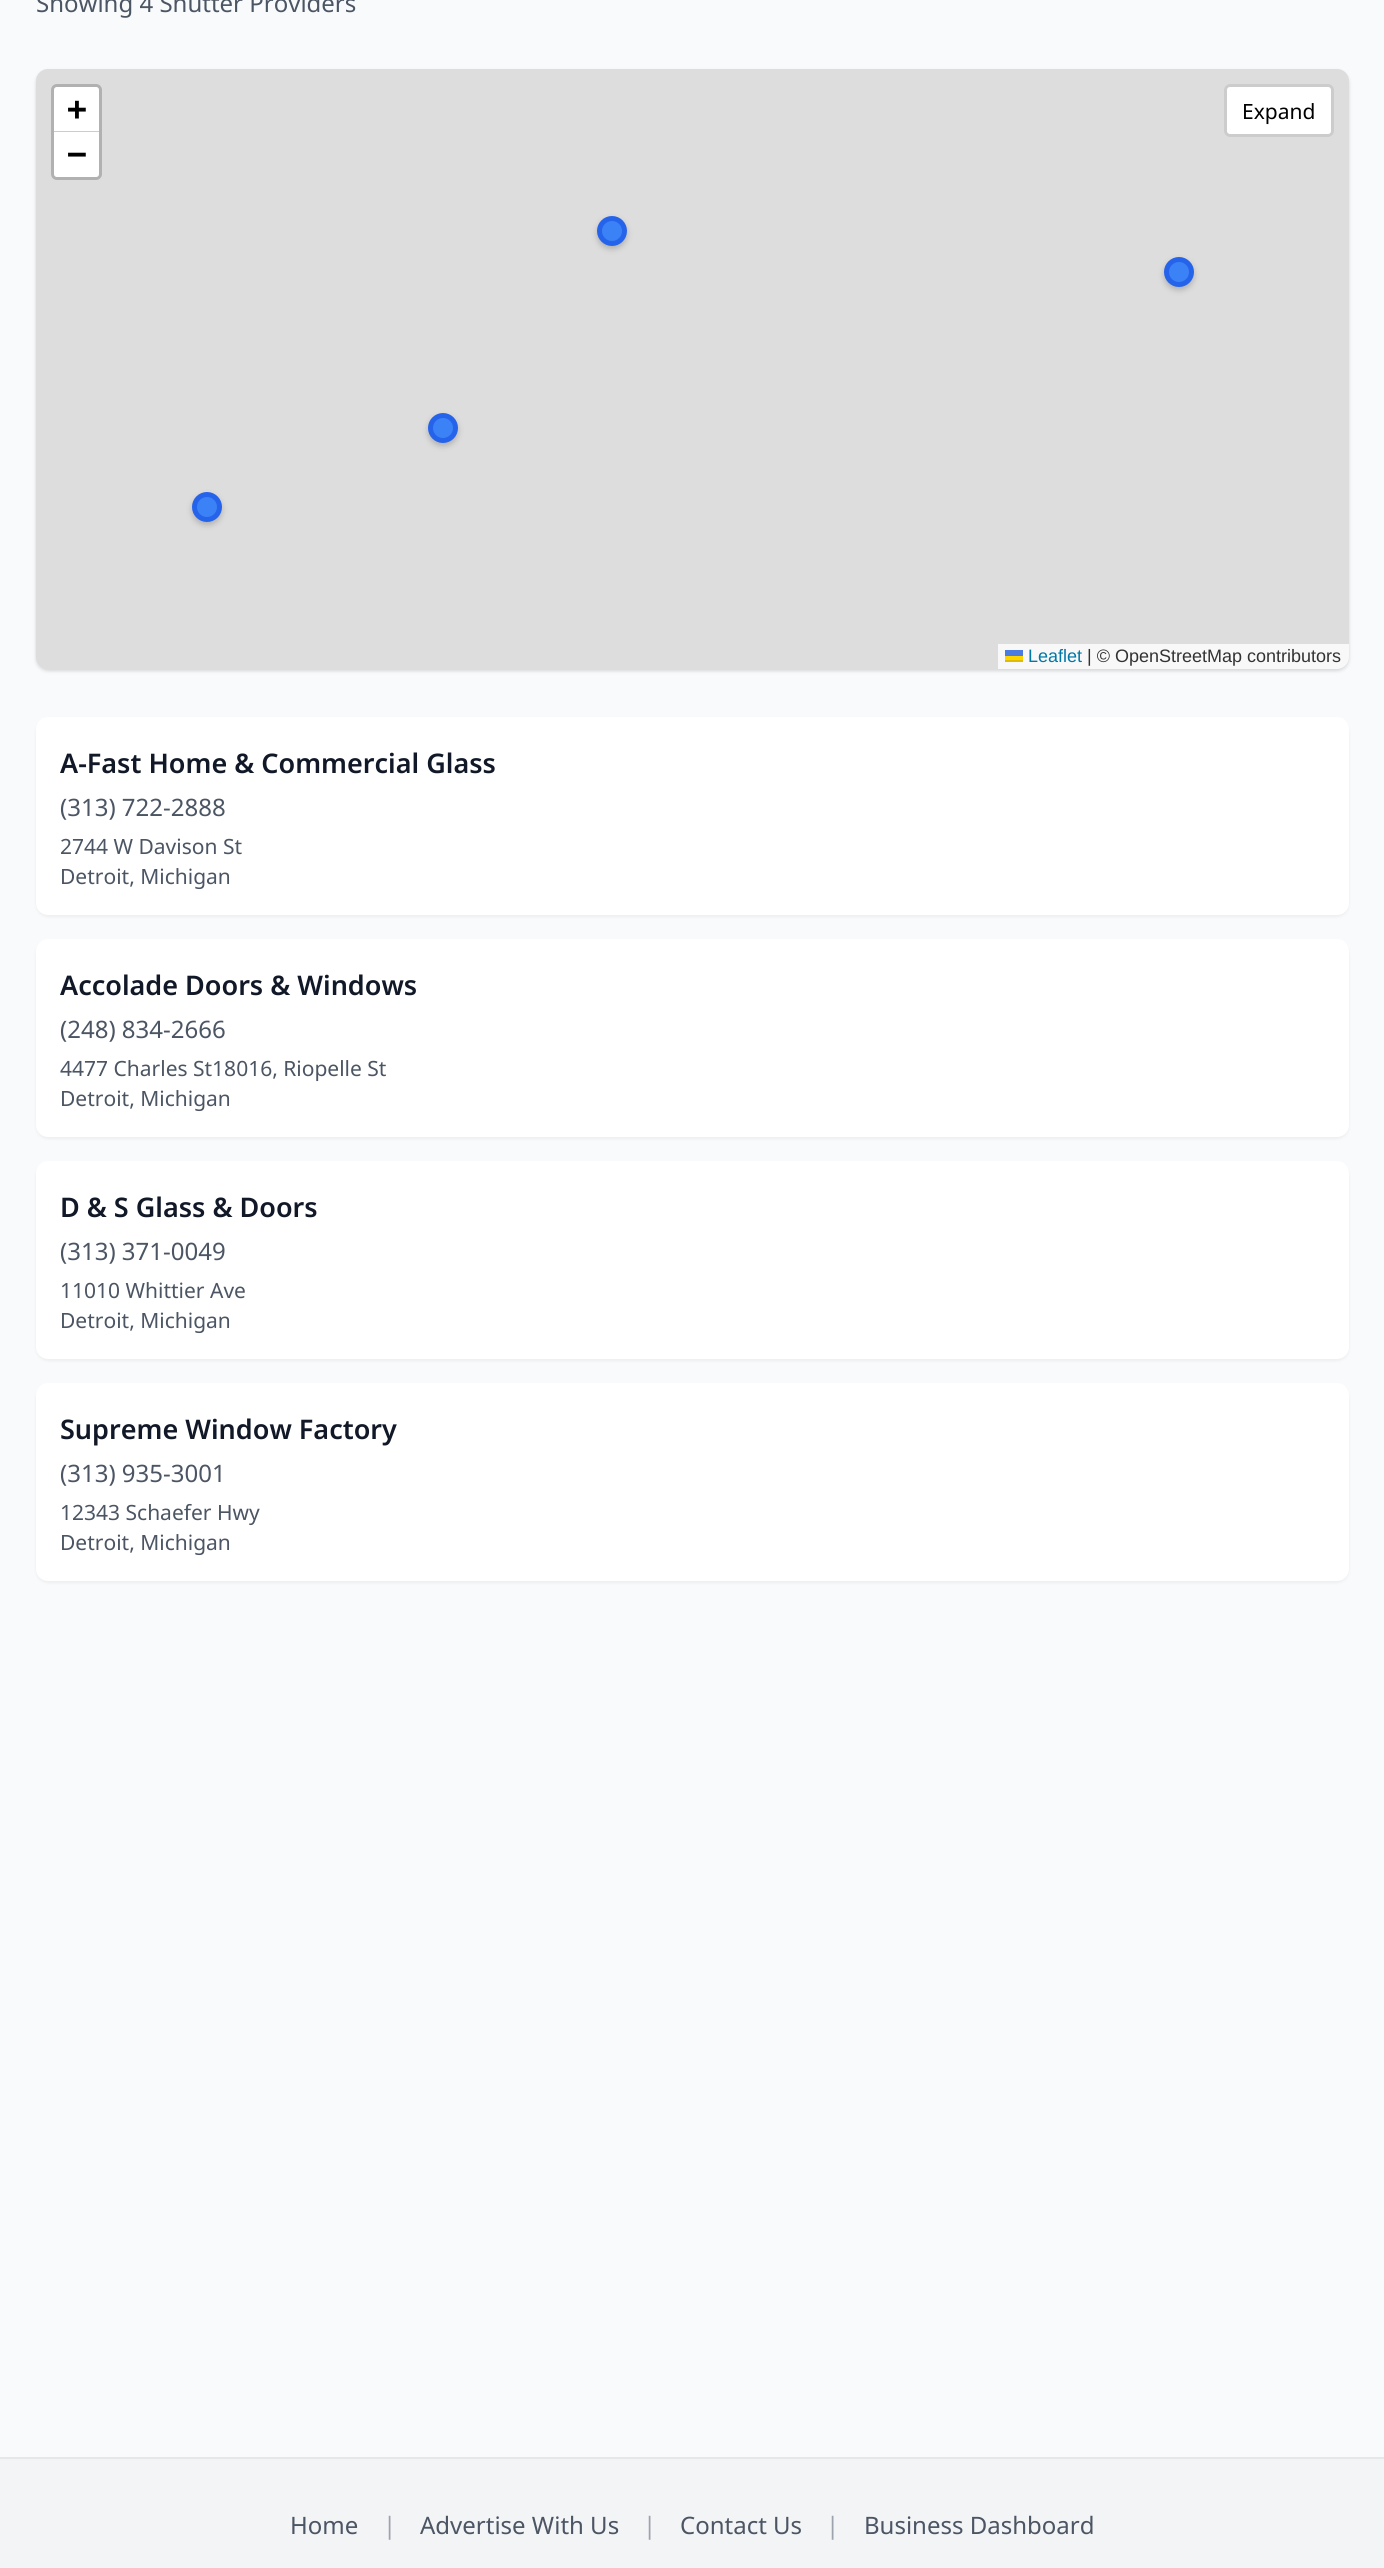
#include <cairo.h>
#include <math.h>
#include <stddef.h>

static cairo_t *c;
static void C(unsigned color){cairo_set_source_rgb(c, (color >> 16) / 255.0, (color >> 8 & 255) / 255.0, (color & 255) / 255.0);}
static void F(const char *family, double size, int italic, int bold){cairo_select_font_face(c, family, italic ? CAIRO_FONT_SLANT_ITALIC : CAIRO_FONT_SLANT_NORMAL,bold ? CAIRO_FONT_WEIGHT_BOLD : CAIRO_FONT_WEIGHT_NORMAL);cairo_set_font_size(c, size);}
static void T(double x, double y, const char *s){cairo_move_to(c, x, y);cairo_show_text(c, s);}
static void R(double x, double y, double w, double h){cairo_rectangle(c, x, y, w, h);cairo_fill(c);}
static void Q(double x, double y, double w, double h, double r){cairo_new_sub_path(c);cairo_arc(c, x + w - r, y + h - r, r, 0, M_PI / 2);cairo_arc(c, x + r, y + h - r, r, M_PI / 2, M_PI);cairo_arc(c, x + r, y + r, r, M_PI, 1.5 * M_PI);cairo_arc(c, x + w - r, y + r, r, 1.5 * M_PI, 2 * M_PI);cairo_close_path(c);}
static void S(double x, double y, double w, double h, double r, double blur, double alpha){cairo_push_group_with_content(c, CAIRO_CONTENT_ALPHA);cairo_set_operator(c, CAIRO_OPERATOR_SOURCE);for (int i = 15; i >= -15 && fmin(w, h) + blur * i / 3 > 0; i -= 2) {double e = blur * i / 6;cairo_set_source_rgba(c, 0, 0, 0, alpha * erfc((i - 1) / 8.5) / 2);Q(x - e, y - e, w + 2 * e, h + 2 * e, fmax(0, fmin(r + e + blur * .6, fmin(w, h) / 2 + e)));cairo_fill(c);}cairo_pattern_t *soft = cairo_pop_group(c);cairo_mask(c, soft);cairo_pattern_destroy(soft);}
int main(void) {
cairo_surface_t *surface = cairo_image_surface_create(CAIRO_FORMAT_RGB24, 1384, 2568);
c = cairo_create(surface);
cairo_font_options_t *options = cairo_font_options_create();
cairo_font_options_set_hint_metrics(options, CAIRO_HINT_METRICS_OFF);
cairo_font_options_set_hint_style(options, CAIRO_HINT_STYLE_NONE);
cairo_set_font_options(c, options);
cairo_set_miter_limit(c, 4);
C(0xf9fafb);
cairo_paint(c);
F("Noto Sans",24,0,0);
C(0x4b5563);
T(36,12,"Showing 4 Shutter Providers");
C(0x000000);
S(36,71,1313,600,12,1.5,.05);
S(36,71,1313,600,12,2,.1);
C(0xdddddd);
Q(36,69,1313,600,12);
cairo_fill(c);
Q(52.5,85.5,48,93,4.5);
C(0xb1b1b1);
cairo_set_line_width(c,3);
cairo_stroke(c);
C(0xffffff);
cairo_new_path(c);
cairo_move_to(c,57,87);
cairo_line_to(c,96,87);
cairo_curve_to(c,97.5,87,99,88.5,99,90);
cairo_line_to(c,99,131);
cairo_line_to(c,54,131);
cairo_line_to(c,54,90);
cairo_curve_to(c,54,88.5,55.5,87,57,87);
cairo_close_path(c);
cairo_fill(c);
C(0xcccccc);
R(54,131,45,1);
F("DejaVu Sans Mono",33,0,1);
C(0x000000);
T(67,120,"+");
C(0xffffff);
cairo_new_path(c);
cairo_move_to(c,54,132);
cairo_line_to(c,99,132);
cairo_line_to(c,99,174);
cairo_curve_to(c,99,175.5,97.5,177,96,177);
cairo_line_to(c,57,177);
cairo_curve_to(c,55.5,177,54,175.5,54,174);
cairo_close_path(c);
cairo_fill(c);
C(0x000000);
T(67,165,"−");
cairo_set_source_rgba(c,1,1,1,0.8);
cairo_new_path(c);
cairo_move_to(c,998,644);
cairo_line_to(c,1349,644);
cairo_line_to(c,1349,657);
cairo_curve_to(c,1349,663.5,1343.5,669,1337,669);
cairo_line_to(c,998,669);
cairo_close_path(c);
cairo_fill(c);
F("Liberation Sans",18,0,0);
C(0x0078a8);
T(1028,662,"Leaflet");
C(0x4c7be1);
R(1005,650,18,6);
C(0xffd500);
R(1005,656,18,4);
C(0xe0bc00);
R(1005,660,18,2);
C(0x333333);
T(1087,662,"| © OpenStreetMap contributors");
C(0x000000);
S(597,219,30,30,15,3,.2);
C(0x3b82f6);
cairo_arc(c,612,231,12.5,0,2 * M_PI);
cairo_fill_preserve(c);
C(0x2563eb);
cairo_set_line_width(c,5);
cairo_stroke(c);
C(0x000000);
S(1164,260,30,30,15,3,.2);
C(0x3b82f6);
cairo_arc(c,1179,272,12.5,0,2 * M_PI);
cairo_fill_preserve(c);
C(0x2563eb);
cairo_stroke(c);
C(0x000000);
S(428,416,30,30,15,3,.2);
C(0x3b82f6);
cairo_arc(c,443,428,12.5,0,2 * M_PI);
cairo_fill_preserve(c);
C(0x2563eb);
cairo_stroke(c);
C(0x000000);
S(192,495,30,30,15,3,.2);
C(0x3b82f6);
cairo_arc(c,207,507,12.5,0,2 * M_PI);
cairo_fill_preserve(c);
C(0x2563eb);
cairo_stroke(c);
C(0xffffff);
Q(1224,84,110,53,6);
cairo_fill(c);
Q(1225.5,85.5,107,50,4.5);
cairo_set_source_rgba(c,0,0,0,0.2);
cairo_set_line_width(c,3);
cairo_stroke(c);
F("Noto Sans",21,0,0);
C(0x000000);
T(1242,119,"Expand");
C(0x000000);
S(36,719,1313,198,12,1.5,.05);
C(0xffffff);
Q(36,717,1313,198,12);
cairo_fill(c);
F("Noto Sans SemiBold",27,0,0);
C(0x111827);
T(60,773,"A-Fast Home & Commercial Glass");
F("Noto Sans",24,0,0);
C(0x4b5563);
T(60,816,"(313) 722-2888");
F("Noto Sans",21,0,0);
T(60,854,"2744 W Davison St");
T(60,884,"Detroit, Michigan");
C(0x000000);
S(36,941,1313,198,12,1.5,.05);
C(0xffffff);
Q(36,939,1313,198,12);
cairo_fill(c);
F("Noto Sans SemiBold",27,0,0);
C(0x111827);
T(60,995,"Accolade Doors & Windows");
F("Noto Sans",24,0,0);
C(0x4b5563);
T(60,1038,"(248) 834-2666");
F("Noto Sans",21,0,0);
T(60,1076,"4477 Charles St18016, Riopelle St");
T(60,1106,"Detroit, Michigan");
C(0x000000);
S(36,1163,1313,198,12,1.5,.05);
C(0xffffff);
Q(36,1161,1313,198,12);
cairo_fill(c);
F("Noto Sans SemiBold",27,0,0);
C(0x111827);
T(60,1217,"D & S Glass & Doors");
F("Noto Sans",24,0,0);
C(0x4b5563);
T(60,1260,"(313) 371-0049");
F("Noto Sans",21,0,0);
T(60,1298,"11010 Whittier Ave");
T(60,1328,"Detroit, Michigan");
C(0x000000);
S(36,1385,1313,198,12,1.5,.05);
C(0xffffff);
Q(36,1383,1313,198,12);
cairo_fill(c);
F("Noto Sans SemiBold",27,0,0);
C(0x111827);
T(60,1439,"Supreme Window Factory");
F("Noto Sans",24,0,0);
C(0x4b5563);
T(60,1482,"(313) 935-3001");
F("Noto Sans",21,0,0);
T(60,1520,"12343 Schaefer Hwy");
T(60,1550,"Detroit, Michigan");
C(0xf3f4f6);
R(0,2459,1384,109);
C(0xe5e7eb);
R(0,2457,1384,2);
F("Noto Sans",24,0,0);
C(0x4b5563);
T(290,2534,"Home");
C(0x9ca3af);
T(383,2534,"|");
C(0x4b5563);
T(420,2534,"Advertise With Us");
C(0x9ca3af);
T(643,2534,"|");
C(0x4b5563);
T(680,2534,"Contact Us");
C(0x9ca3af);
T(826,2534,"|");
C(0x4b5563);
T(864,2534,"Business Dashboard");
cairo_surface_write_to_png(surface, "o.png");
cairo_font_options_destroy(options);
cairo_destroy(c);
cairo_surface_destroy(surface);
return 0;
}
